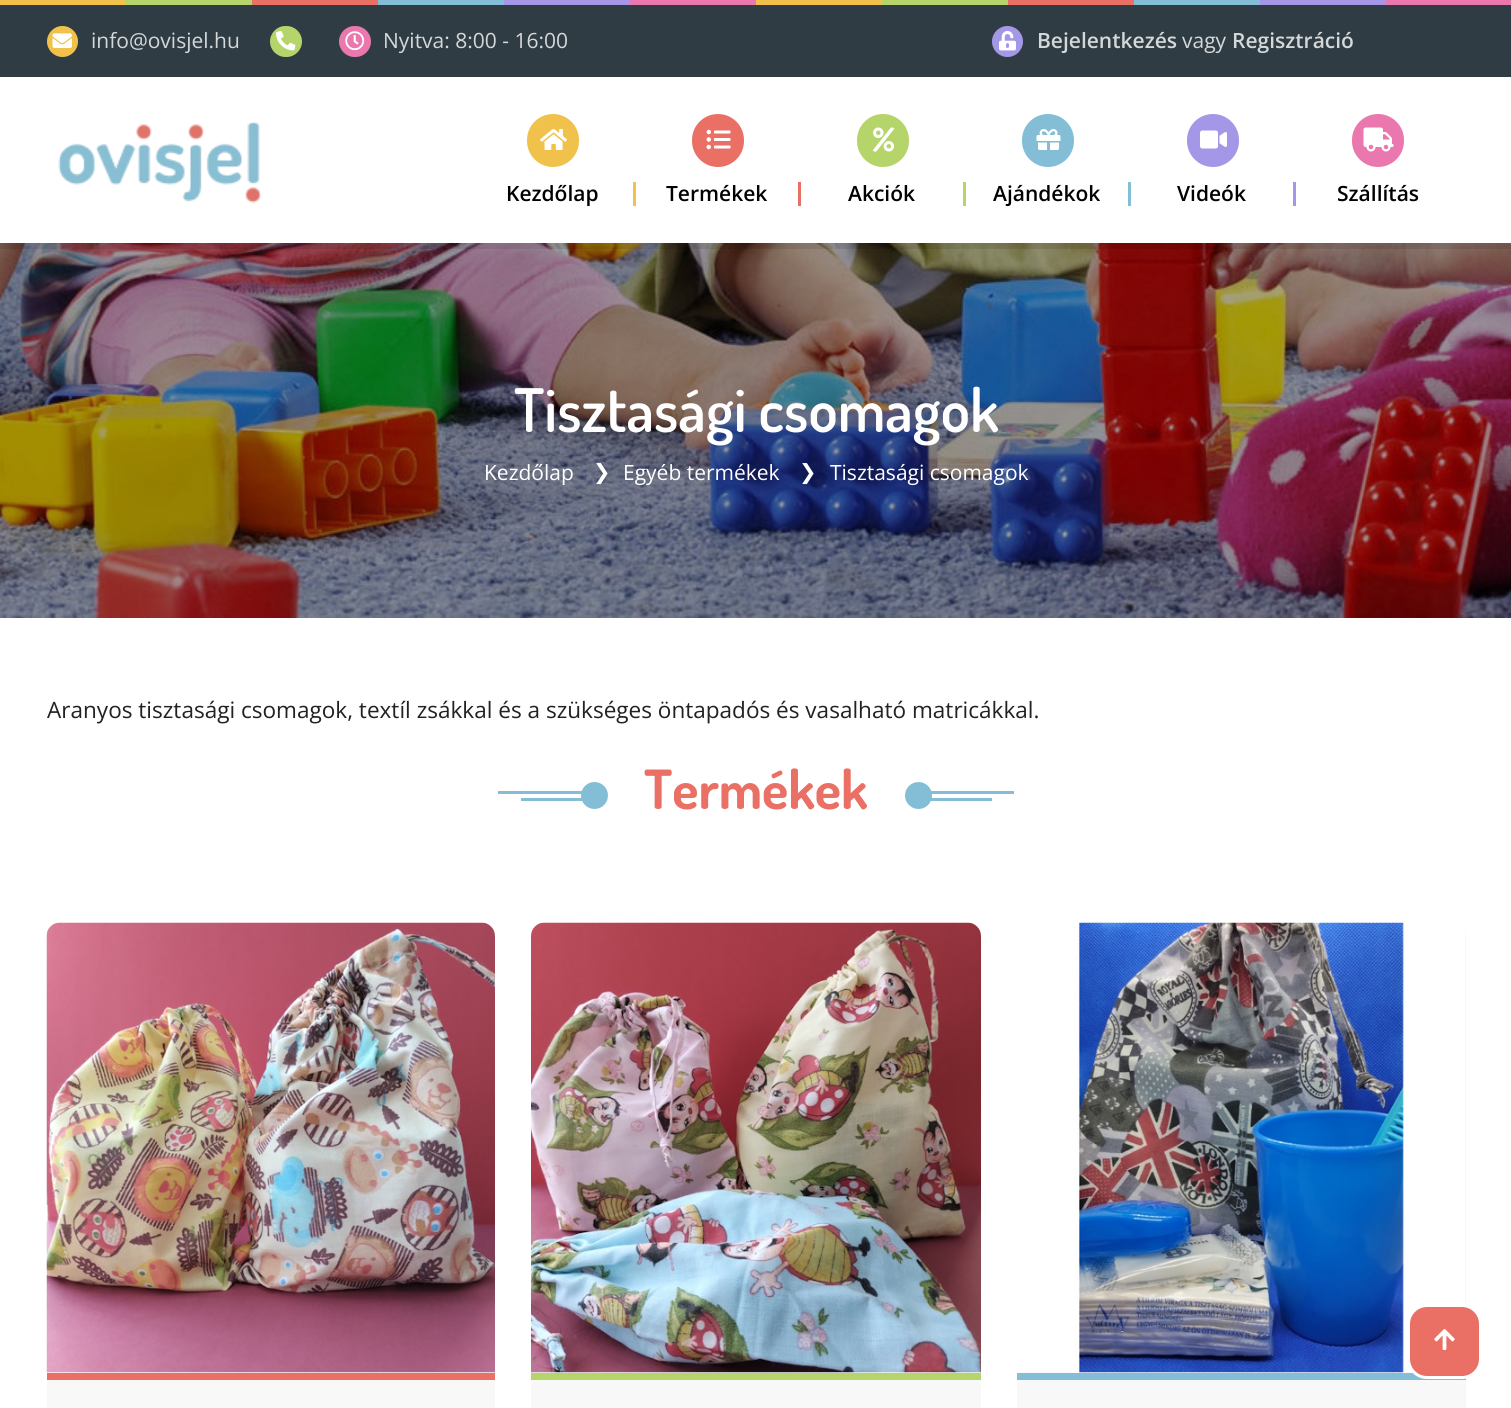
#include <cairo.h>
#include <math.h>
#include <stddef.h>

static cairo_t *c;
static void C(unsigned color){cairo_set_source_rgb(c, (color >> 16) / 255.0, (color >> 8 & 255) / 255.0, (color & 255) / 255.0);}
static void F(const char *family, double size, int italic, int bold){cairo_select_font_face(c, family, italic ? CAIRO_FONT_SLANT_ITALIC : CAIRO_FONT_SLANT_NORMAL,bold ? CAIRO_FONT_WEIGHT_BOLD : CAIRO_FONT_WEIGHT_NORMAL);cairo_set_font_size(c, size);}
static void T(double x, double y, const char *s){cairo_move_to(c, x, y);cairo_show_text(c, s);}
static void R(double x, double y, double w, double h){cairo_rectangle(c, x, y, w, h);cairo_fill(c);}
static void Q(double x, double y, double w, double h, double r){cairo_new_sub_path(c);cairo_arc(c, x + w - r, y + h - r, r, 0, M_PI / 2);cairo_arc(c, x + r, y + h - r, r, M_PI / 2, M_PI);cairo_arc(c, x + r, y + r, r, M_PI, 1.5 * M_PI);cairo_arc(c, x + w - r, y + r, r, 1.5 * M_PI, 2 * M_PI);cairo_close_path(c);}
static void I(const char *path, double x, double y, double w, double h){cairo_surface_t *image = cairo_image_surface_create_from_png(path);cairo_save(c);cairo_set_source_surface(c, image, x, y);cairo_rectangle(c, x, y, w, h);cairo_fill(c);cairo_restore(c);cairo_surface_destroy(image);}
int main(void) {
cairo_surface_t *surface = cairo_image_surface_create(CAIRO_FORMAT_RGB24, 1511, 1408);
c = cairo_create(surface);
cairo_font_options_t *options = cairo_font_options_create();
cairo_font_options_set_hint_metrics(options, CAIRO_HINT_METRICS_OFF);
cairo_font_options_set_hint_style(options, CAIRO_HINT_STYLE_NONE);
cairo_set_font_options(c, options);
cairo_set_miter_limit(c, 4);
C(0xffffff);
cairo_paint(c);
C(0xf0c24b);
R(0,0,126,5);
C(0xb5d56a);
R(126,0,126,5);
C(0xea7066);
R(252,0,126,5);
C(0x84bed6);
R(378,0,126,5);
C(0xa597e7);
R(504,0,126,5);
C(0xea77ad);
R(630,0,126,5);
C(0xf0c24b);
R(756,0,126,5);
C(0xb5d56a);
R(882,0,126,5);
C(0xea7066);
R(1008,0,126,5);
C(0x84bed6);
R(1134,0,126,5);
C(0xa597e7);
R(1260,0,126,5);
C(0xea77ad);
R(1386,0,125,5);
C(0x2f3c43);
R(0,5,1511,72);
C(0xf0c24b);
cairo_arc(c,62.5,41.5,15.5,0,2 * M_PI);
cairo_fill(c);
I("1.png",52,33,20,15);
F("Open Sans",21,0,0);
C(0xd5d8d9);
T(91,48,"info@ovisjel.hu");
C(0xb5d56a);
Q(270,26,32,31,15.5);
cairo_fill(c);
I("2.png",276,31,20,20);
C(0xea77ad);
Q(339,26,32,31,15.5);
cairo_fill(c);
I("3.png",345,31,20,20);
C(0xd5d8d9);
T(383,48,"Nyitva: 8:00 - 16:00");
C(0xa597e7);
cairo_new_path(c);
cairo_arc(c,1007.5,41.5,15.5,0,2 * M_PI);
cairo_fill(c);
I("4.png",999,31,17,20);
F("Open Sans SemiBold",21,0,0);
C(0xd5d8d9);
T(1037,48,"Bejelentkezés");
F("Open Sans",21,0,0);
T(1182,48,"vagy");
F("Open Sans SemiBold",21,0,0);
T(1232,48,"Regisztráció");
I("12.png",0,243,1511,375);
cairo_set_source_rgba(c,0,0,0,0.1);
R(0,243,1511,6);
I("5.png",58,122,204,81);
C(0xf0c24b);
Q(527,114,52,53,26);
cairo_fill(c);
I("6.png",540,129,27,21);
R(633,182,3,24);
C(0x000000);
T(506,201,"Kezdőlap");
C(0xea7066);
Q(692,114,52,53,26);
cairo_fill(c);
I("7.png",706,129,25,21);
R(798,182,3,24);
C(0x000000);
T(666,201,"Termékek");
C(0xb5d56a);
Q(857,114,52,53,26);
cairo_fill(c);
I("8.png",873,127,21,25);
R(963,182,3,24);
C(0x000000);
T(848,201,"Akciók");
C(0x84bed6);
Q(1022,114,52,53,26);
cairo_fill(c);
I("9.png",1036,129,25,21);
R(1128,182,3,24);
C(0x000000);
T(993,201,"Ajándékok");
C(0xa597e7);
Q(1187,114,52,53,26);
cairo_fill(c);
I("10.png",1200,130,27,19);
R(1293,182,3,24);
C(0x000000);
T(1177,201,"Videók");
C(0xea77ad);
Q(1352,114,52,53,26);
cairo_fill(c);
I("11.png",1363,127,31,25);
C(0x000000);
T(1337,201,"Szállítás");
F("Dosis SemiBold",60,0,0);
C(0xffffff);
T(514,432,"Tisztasági csomagok");
F("Open Sans",21,0,0);
T(484,480,"Kezdőlap");
F("DejaVu Sans",21,0,0);
T(593,479,"❯");
F("Open Sans",21,0,0);
T(623,480,"Egyéb termékek");
F("DejaVu Sans",21,0,0);
T(799,479,"❯");
F("Open Sans",21,0,0);
T(830,480,"Tisztasági csomagok");
F("Open Sans",22.55,0,0);
C(0x222222);
T(47,718,"Aranyos tisztasági csomagok, textíl zsákkal és a szükséges öntapadós és vasalható matricákkal.");
C(0x84bed6);
cairo_new_path(c);
cairo_arc(c,594.5,795.5,13.5,0,2 * M_PI);
cairo_fill(c);
R(498,791,84,3);
R(521,798,62,3);
F("Dosis",54,0,1);
C(0xea7066);
T(644,809,"Termékek");
C(0x84bed6);
cairo_new_path(c);
cairo_arc(c,918.5,795.5,13.5,0,2 * M_PI);
cairo_fill(c);
R(931,791,83,3);
R(930,798,62,3);
C(0xf8f8f8);
Q(47,923,448,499,14);
cairo_fill(c);
I("13.png",46,922,449,451);
C(0xea7066);
R(47,1373,448,7);
C(0xf8f8f8);
Q(531,923,450,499,14);
cairo_fill(c);
I("14.png",531,922,450,451);
C(0xb5d56a);
R(531,1373,450,7);
C(0xf8f8f8);
Q(1017,923,449,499,14);
cairo_fill(c);
I("15.png",1017,922,448,451);
C(0x84bed6);
R(1017,1373,449,7);
C(0xea7066);
Q(1408.5,1305.5,72,72,18.5);
cairo_fill_preserve(c);
C(0xffffff);
cairo_set_line_width(c,3);
cairo_stroke(c);
I("16.png",1434,1329,21,21);
cairo_surface_write_to_png(surface, "o.png");
cairo_font_options_destroy(options);
cairo_destroy(c);
cairo_surface_destroy(surface);
return 0;
}
